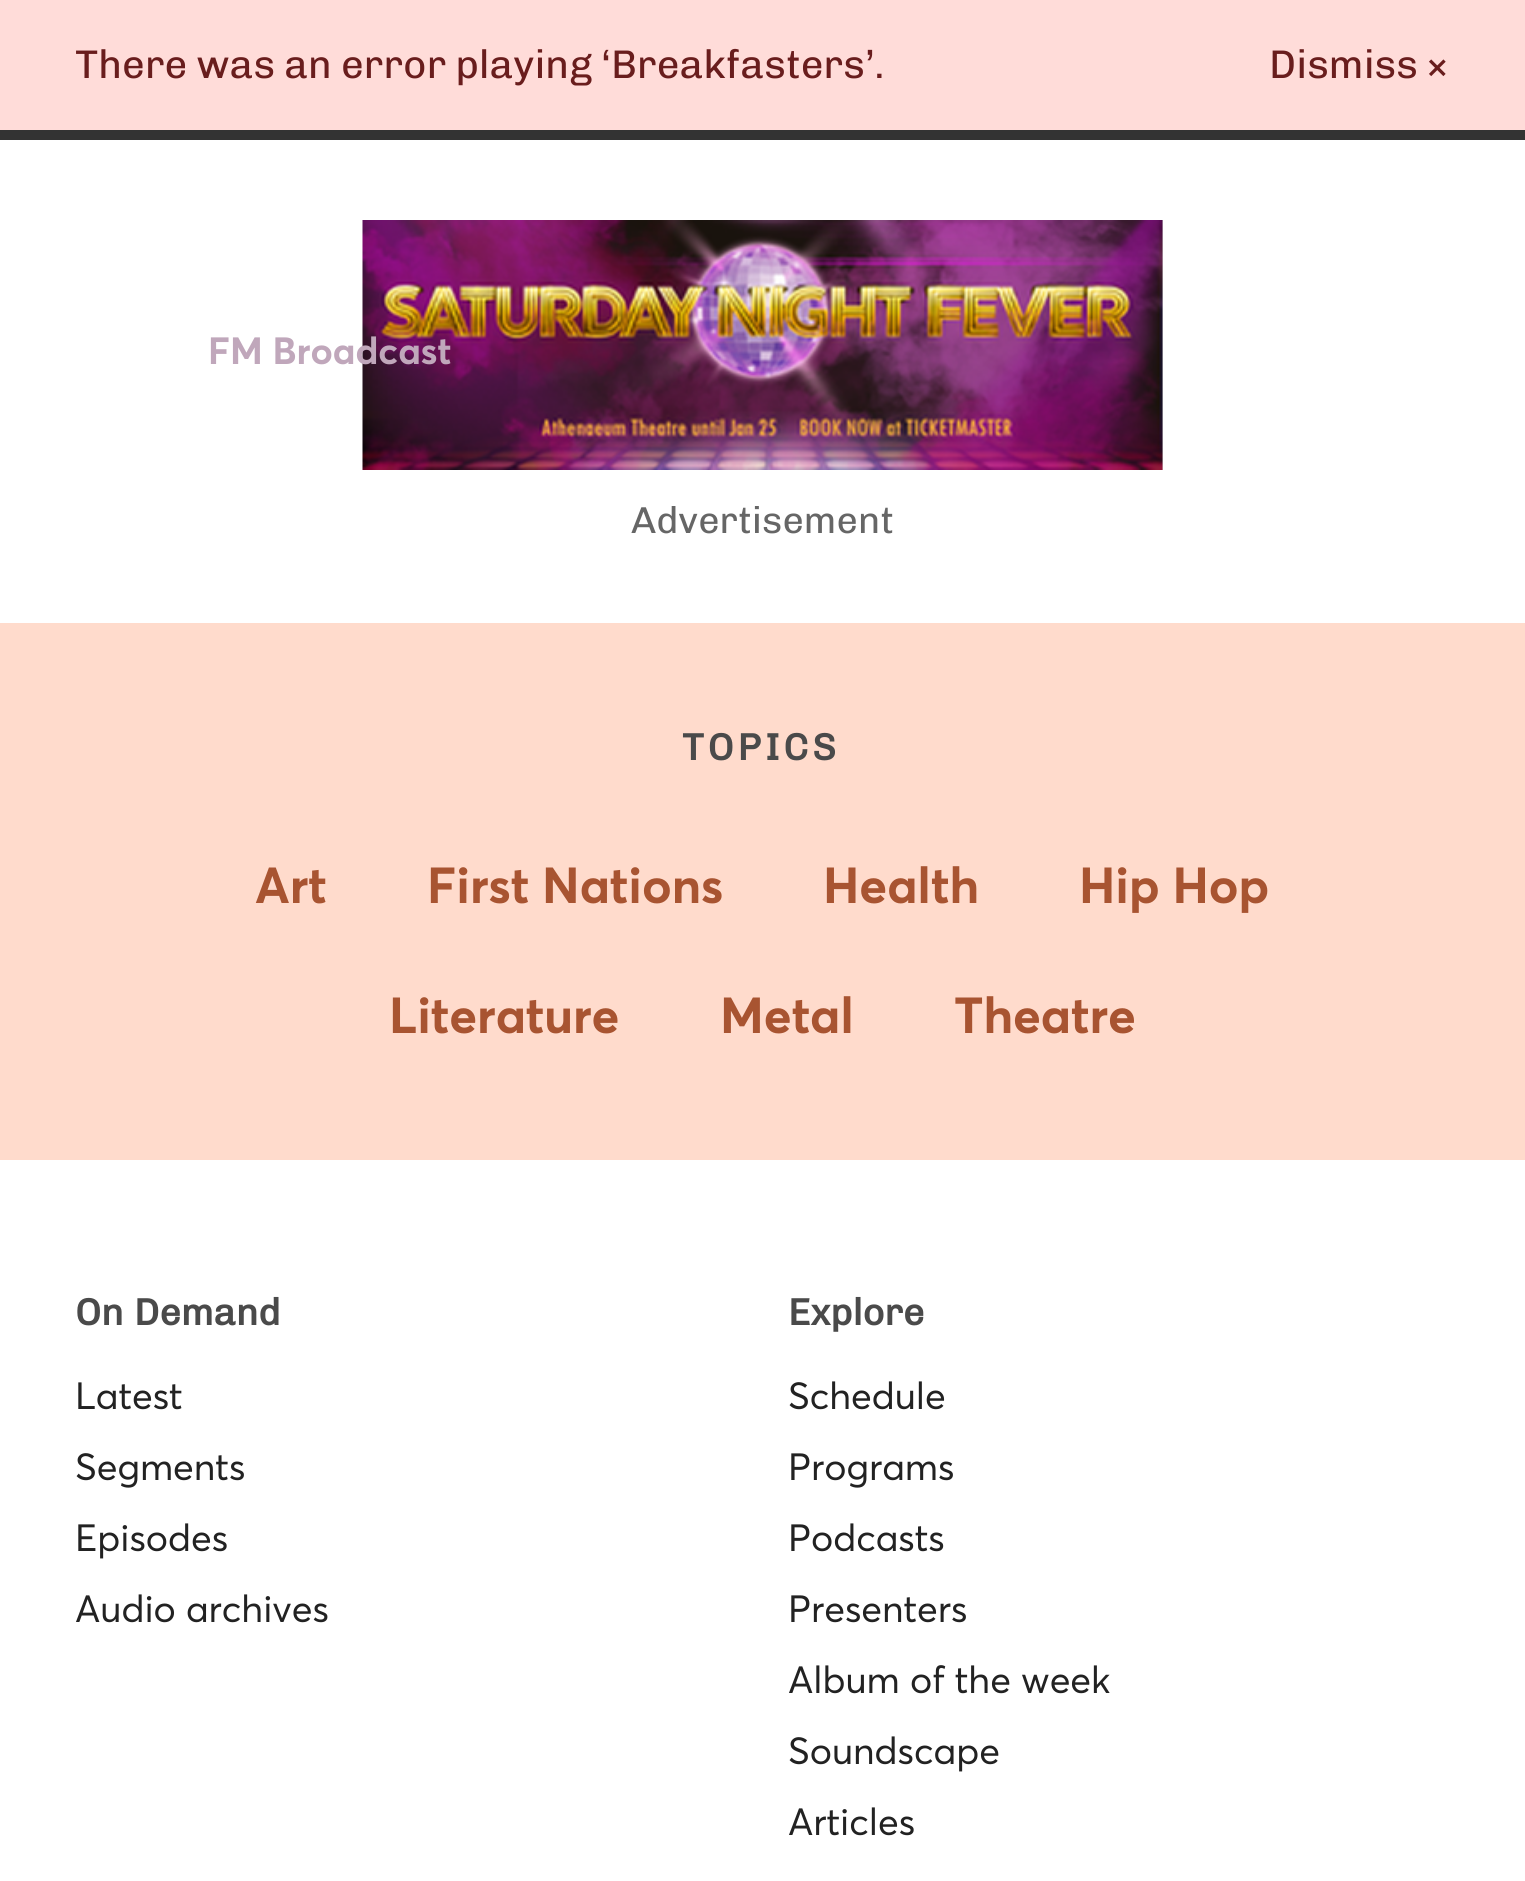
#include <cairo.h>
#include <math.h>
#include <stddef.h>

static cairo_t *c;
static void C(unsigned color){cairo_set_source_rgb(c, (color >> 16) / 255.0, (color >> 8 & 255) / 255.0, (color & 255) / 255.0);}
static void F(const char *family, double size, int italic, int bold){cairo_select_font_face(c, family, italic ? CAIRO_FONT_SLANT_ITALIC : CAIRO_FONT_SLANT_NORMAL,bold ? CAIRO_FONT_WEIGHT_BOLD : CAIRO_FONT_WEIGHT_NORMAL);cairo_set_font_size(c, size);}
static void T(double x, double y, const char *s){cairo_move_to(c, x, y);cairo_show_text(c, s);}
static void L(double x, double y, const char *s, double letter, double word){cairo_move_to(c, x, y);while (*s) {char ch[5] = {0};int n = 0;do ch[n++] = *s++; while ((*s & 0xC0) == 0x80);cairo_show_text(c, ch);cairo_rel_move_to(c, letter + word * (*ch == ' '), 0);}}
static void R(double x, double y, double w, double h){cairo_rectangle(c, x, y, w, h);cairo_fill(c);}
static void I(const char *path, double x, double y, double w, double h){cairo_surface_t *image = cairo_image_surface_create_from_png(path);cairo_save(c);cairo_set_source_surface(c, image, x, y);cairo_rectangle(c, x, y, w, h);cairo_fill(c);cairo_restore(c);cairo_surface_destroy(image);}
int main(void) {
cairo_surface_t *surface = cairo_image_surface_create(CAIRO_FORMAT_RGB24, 1525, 1881);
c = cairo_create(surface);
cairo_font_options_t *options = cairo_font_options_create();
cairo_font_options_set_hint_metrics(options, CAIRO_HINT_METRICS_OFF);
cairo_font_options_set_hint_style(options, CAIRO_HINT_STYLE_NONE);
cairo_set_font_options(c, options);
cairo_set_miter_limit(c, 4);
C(0xffffff);
cairo_paint(c);
C(0xffdcd9);
R(0,0,1525,130);
F("Chivo",40,0,0);
C(0x691d1d);
T(75,78,"There was an error playing ‘Breakfasters’.");
T(1269,78,"Dismiss");
T(1425,78,"×");
C(0x333333);
R(0,130,1525,10);
C(0xcccccc);
R(1162,220,1,250);
I("1.png",362,220,801,250);
F("Chivo",37.5,0,0);
C(0x666666);
T(631,533,"Advertisement");
C(0xffdbcc);
R(0,623,1525,537);
F("Chivo",37.5,0,1);
C(0x4a4a4a);
L(682,760,"TOPICS",3.75,0);
F("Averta",50,0,1);
C(0xa85431);
T(255,903,"Art");
T(427,903,"First Nations");
T(823,903,"Health");
T(1079,903,"Hip Hop");
T(389,1033,"Literature");
T(720,1033,"Metal");
T(954,1033,"Theatre");
F("Chivo",37.5,0,1);
C(0x4a4a4a);
L(75,1325,"On Demand",0,2);
F("Averta",37.5,0,0);
C(0x222222);
T(75,1409,"Latest");
T(75,1480,"Segments");
T(75,1551,"Episodes");
T(75,1622,"Audio archives");
F("Chivo",37.5,0,1);
C(0x4a4a4a);
T(788,1325,"Explore");
F("Averta",37.5,0,0);
C(0x222222);
T(788,1409,"Schedule");
T(788,1480,"Programs");
T(788,1551,"Podcasts");
T(788,1622,"Presenters");
T(788,1693,"Album of the week");
T(788,1764,"Soundscape");
T(788,1835,"Articles");
F("Averta",37.5,0,1);
C(0xc0a7bb);
T(208,364,"FM Broadcast");
cairo_surface_write_to_png(surface, "o.png");
cairo_font_options_destroy(options);
cairo_destroy(c);
cairo_surface_destroy(surface);
return 0;
}
